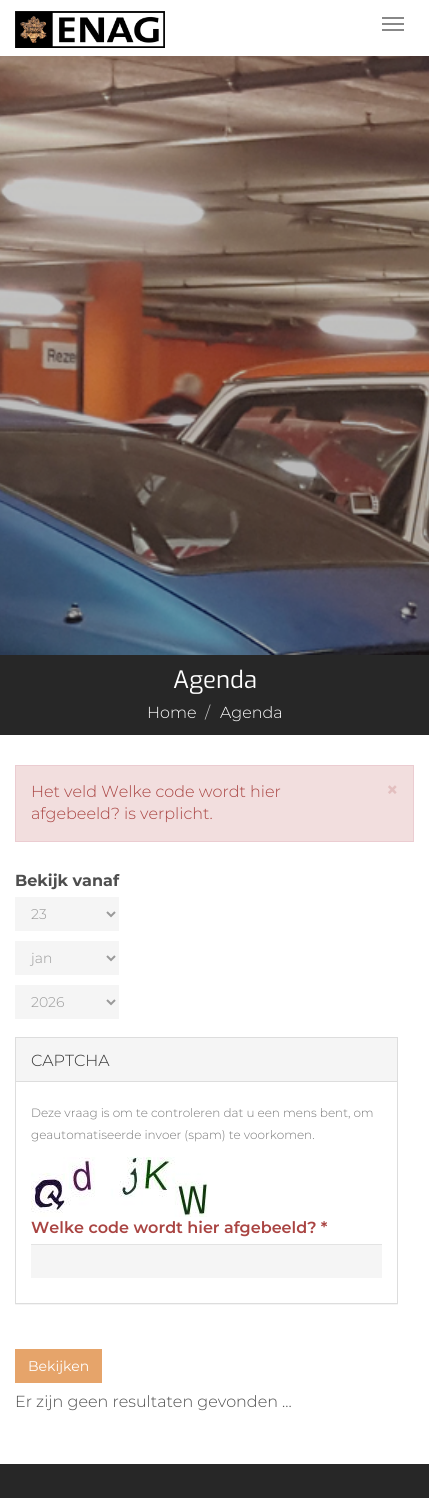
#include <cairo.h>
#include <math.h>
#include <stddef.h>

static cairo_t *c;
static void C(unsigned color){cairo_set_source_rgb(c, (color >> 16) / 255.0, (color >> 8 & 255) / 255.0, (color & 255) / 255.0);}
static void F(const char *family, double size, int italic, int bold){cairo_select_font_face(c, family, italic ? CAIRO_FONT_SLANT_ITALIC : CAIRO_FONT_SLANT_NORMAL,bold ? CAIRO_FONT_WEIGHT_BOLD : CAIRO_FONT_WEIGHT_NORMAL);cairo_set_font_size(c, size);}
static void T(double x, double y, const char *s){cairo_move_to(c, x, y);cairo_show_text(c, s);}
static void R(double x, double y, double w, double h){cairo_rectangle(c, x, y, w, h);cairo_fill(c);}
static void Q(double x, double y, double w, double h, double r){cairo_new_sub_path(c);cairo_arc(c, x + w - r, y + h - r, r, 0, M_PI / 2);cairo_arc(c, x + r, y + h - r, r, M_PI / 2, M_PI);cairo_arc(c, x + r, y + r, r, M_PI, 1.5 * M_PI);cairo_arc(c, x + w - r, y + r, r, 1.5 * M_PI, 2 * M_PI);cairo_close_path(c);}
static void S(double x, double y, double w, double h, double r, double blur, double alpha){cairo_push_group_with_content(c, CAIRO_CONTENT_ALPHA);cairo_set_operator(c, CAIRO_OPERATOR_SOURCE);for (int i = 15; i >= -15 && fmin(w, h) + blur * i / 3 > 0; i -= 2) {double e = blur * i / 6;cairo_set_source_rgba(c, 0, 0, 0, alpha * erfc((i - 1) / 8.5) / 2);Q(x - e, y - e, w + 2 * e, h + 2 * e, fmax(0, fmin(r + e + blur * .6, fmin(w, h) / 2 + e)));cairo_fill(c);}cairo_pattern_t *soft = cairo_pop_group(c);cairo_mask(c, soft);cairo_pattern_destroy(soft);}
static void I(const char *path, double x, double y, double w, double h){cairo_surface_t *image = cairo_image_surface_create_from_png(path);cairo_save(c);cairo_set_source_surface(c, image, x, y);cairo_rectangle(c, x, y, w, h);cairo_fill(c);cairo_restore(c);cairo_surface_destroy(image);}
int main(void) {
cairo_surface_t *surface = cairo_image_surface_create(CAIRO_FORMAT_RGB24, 429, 1498);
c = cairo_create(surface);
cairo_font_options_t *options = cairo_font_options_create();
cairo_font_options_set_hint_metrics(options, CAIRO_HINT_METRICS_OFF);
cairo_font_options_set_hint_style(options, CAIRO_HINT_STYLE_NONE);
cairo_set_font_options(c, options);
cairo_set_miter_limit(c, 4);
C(0xffffff);
cairo_paint(c);
I("1.png",15,11,150,37);
C(0x888888);
R(382,17,22,2);
R(382,23,22,2);
R(382,29,22,2);
I("2.png",0,56,429,599);
C(0x272727);
R(0,655,429,80);
F("Exo",24,0,0);
C(0xffffff);
T(173,688,"Agenda");
F("Montserrat Light",16,0,0);
T(147,718,"Home");
C(0xcccccc);
T(205,718,"/");
C(0xffffff);
T(220,718,"Agenda");
C(0xf2dede);
cairo_rectangle(c,15.5,765.5,398,76);
cairo_fill_preserve(c);
C(0xebccd1);
cairo_set_line_width(c,1);
cairo_stroke(c);
C(0xa94442);
T(31,797,"Het veld Welke code wordt hier");
F("Montserrat",21,0,1);
C(0xe3bfbf);
T(386,797,"×");
F("Montserrat Light",16,0,0);
C(0xa94442);
T(31,819,"afgebeeld? is verplicht.");
F("Montserrat",16,0,1);
C(0x4e4e4e);
T(15,886,"Bekijk vanaf");
C(0xf5f5f5);
R(15,897,104,34);
cairo_new_path(c);
cairo_move_to(c,107,912);
cairo_line_to(c,111,916);
cairo_line_to(c,115,912);
C(0x999999);
cairo_set_line_width(c,2);
cairo_stroke(c);
F("Montserrat Light",14,0,0);
T(31,919,"23");
C(0xf5f5f5);
R(15,941,104,34);
cairo_new_path(c);
cairo_move_to(c,107,956);
cairo_line_to(c,111,960);
cairo_line_to(c,115,956);
C(0x999999);
cairo_stroke(c);
T(31,963,"jan");
C(0xf5f5f5);
R(15,985,104,34);
cairo_new_path(c);
cairo_move_to(c,107,1000);
cairo_line_to(c,111,1004);
cairo_line_to(c,115,1000);
C(0x999999);
cairo_stroke(c);
T(31,1007,"2026");
cairo_save(c);
cairo_rectangle(c,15,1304,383,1);
cairo_clip(c);
C(0x000000);
S(15,1038,383,267,0,.5,.05);
cairo_restore(c);
cairo_rectangle(c,15.5,1037.5,382,266);
C(0xdddddd);
cairo_set_line_width(c,1);
cairo_stroke(c);
C(0xf5f5f5);
R(16,1038,381,43);
C(0xdddddd);
R(16,1081,381,1);
F("Montserrat Light",16,0,0);
C(0x333333);
T(31,1066,"CAPTCHA");
F("Montserrat Light",12,0,0);
C(0x777777);
T(31,1117,"Deze vraag is om te controleren dat u een mens bent, om");
T(31,1139,"geautomatiseerde invoer (spam) te voorkomen.");
I("3.png",31,1157,177,60);
F("Montserrat SemiBold",16,0,0);
C(0xa94442);
T(31,1233,"Welke code wordt hier afgebeeld? *");
C(0xf5f5f5);
R(31,1245,351,33);
C(0xe3e3e3);
R(31,1244,351,1);
C(0xe6a46a);
R(15,1349,87,34);
F("Montserrat",14,0,0);
C(0xffffff);
T(28,1371,"Bekijken");
F("Montserrat Light",16,0,0);
C(0x4e4e4e);
T(15,1407,"Er zijn geen resultaten gevonden ...");
C(0x272727);
R(0,1464,429,34);
cairo_surface_write_to_png(surface, "o.png");
cairo_font_options_destroy(options);
cairo_destroy(c);
cairo_surface_destroy(surface);
return 0;
}
